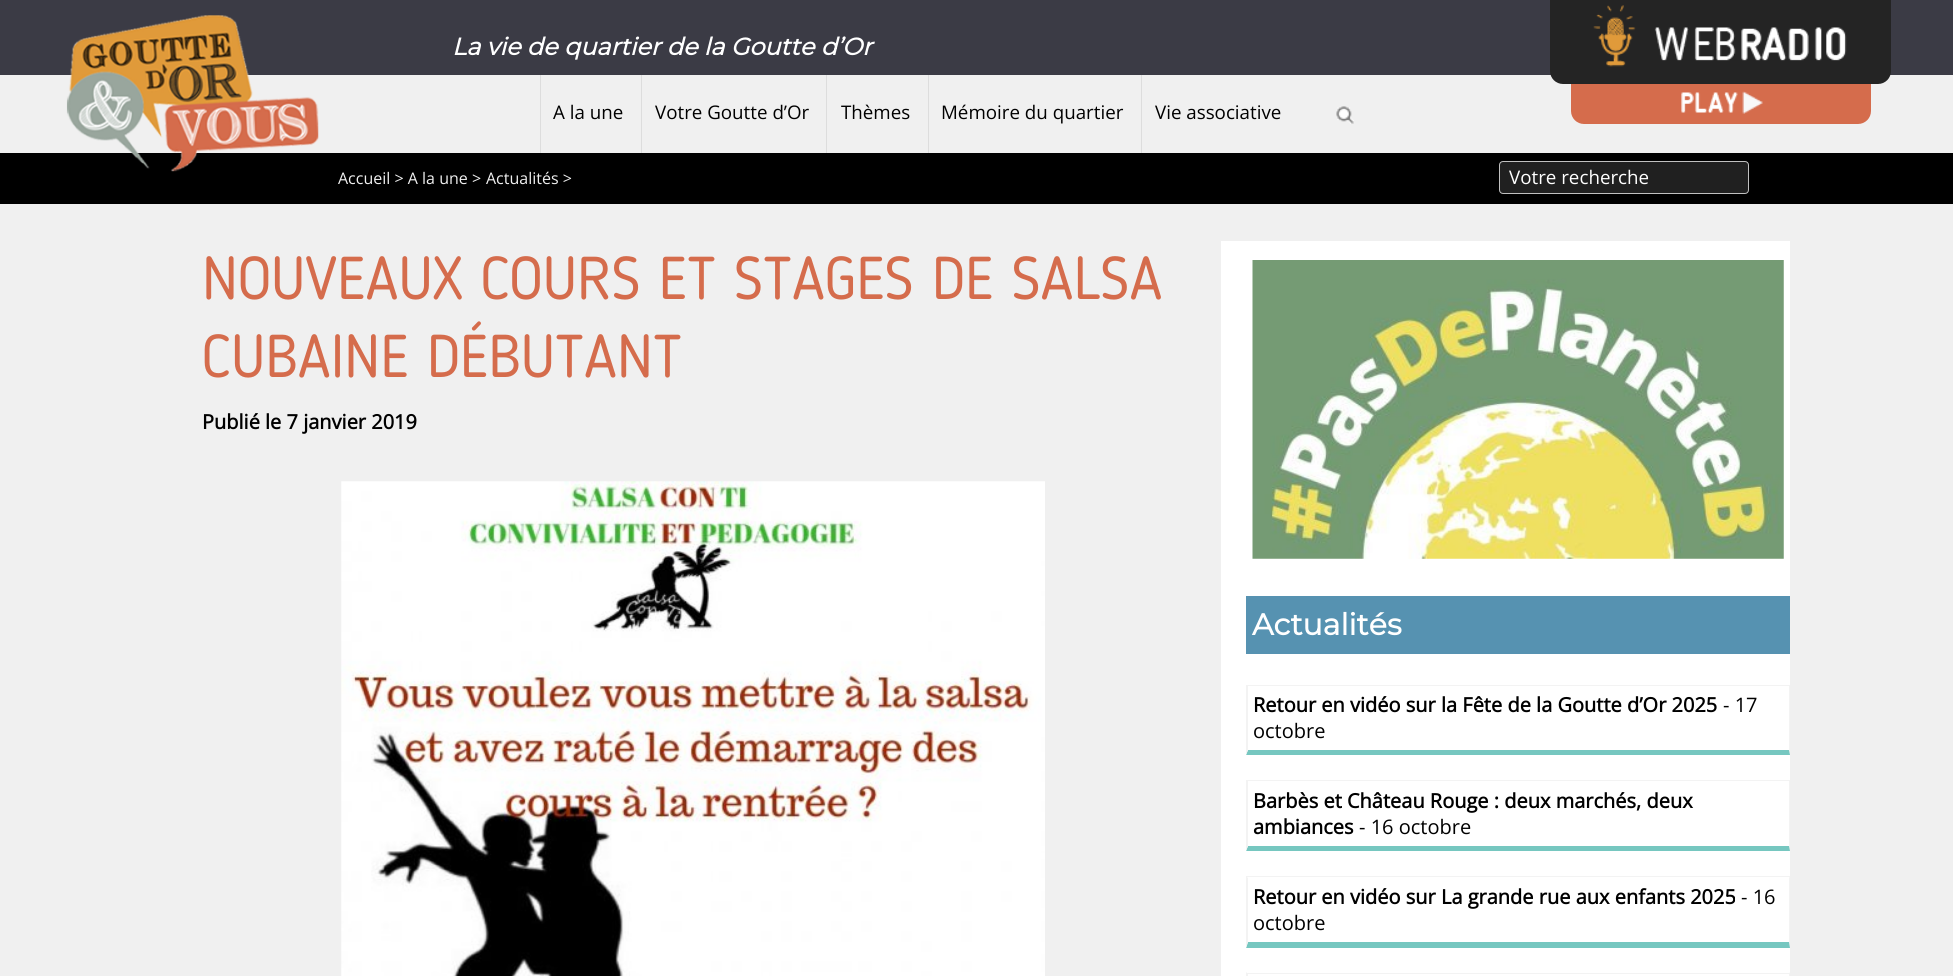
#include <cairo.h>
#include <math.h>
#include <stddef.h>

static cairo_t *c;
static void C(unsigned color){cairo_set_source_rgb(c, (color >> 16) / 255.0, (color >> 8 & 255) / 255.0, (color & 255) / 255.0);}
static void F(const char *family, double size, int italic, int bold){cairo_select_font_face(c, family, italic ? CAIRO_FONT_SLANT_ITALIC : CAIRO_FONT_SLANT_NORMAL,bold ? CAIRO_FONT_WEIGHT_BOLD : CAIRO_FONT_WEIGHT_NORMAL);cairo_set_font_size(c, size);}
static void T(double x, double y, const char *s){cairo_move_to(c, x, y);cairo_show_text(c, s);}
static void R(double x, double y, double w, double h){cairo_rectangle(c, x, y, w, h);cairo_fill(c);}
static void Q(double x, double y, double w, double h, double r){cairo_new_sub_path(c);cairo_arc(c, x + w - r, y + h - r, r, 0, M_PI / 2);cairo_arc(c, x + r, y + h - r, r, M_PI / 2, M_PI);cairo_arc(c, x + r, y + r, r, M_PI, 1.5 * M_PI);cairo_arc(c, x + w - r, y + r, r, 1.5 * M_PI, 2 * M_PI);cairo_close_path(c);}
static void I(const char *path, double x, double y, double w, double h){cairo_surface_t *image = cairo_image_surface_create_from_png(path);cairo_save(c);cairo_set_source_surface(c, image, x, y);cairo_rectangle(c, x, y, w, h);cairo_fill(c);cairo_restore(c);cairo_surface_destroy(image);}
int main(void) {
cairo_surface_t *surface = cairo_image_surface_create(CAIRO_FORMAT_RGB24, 1953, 976);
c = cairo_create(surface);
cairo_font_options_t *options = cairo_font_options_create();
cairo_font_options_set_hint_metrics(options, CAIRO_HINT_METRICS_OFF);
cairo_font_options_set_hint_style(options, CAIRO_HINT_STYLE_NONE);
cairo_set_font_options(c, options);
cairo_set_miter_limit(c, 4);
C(0xf0f0f0);
cairo_paint(c);
C(0x3b3b45);
R(0,0,1953,75);
C(0x000000);
R(0,153,1953,51);
I("1.png",66,15,253,157);
F("Montserrat",24,1,1);
C(0xffffff);
T(452,55,"La vie de quartier de la Goutte d’Or");
C(0xdddddd);
R(540,75,1,78);
F("Open Sans",18.75,0,0);
C(0x000000);
T(553,119,"A la une");
C(0xdddddd);
R(641,75,1,78);
C(0x000000);
T(655,119,"Votre Goutte d’Or");
C(0xdddddd);
R(826,75,1,78);
C(0x000000);
T(841,119,"Thèmes");
C(0xdddddd);
R(928,75,1,78);
C(0x000000);
T(941,119,"Mémoire du quartier");
C(0xdddddd);
R(1141,75,1,78);
C(0x000000);
T(1155,119,"Vie associative");
I("2.png",1336,106,18,18);
C(0xd56c4c);
Q(1571,65,300,59,13);
cairo_fill(c);
C(0x242424);
Q(1550,-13,341,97,13);
cairo_fill(c);
I("3.png",1593,5,254,62);
I("4.png",1681,91,82,23);
F("Open Sans",16,0,0);
C(0xf0f0f0);
T(338,184,"Accueil > A la une >");
T(486,184,"Actualités >");
C(0x202020);
Q(1499.5,161.5,249,32,3.5);
cairo_fill_preserve(c);
C(0xc0c0c0);
cairo_set_line_width(c,1);
cairo_stroke(c);
F("Open Sans",18.75,0,0);
C(0xffffff);
T(1509,184,"Votre recherche");
F("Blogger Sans",60,0,0);
C(0xd56c4c);
T(202,299,"NOUVEAUX COURS ET STAGES DE SALSA");
T(202,377,"CUBAINE DÉBUTANT");
F("Open Sans",20,0,1);
C(0x000000);
T(202,429,"Publié le 7 janvier 2019");
I("5.png",341,481,704,495);
C(0xffffff);
R(1221,241,569,735);
I("6.png",1252,260,532,299);
C(0x5692b1);
R(1246,596,544,58);
F("Montserrat",30,0,1);
C(0xffffff);
T(1252,635,"Actualités");
C(0xf3f3f3);
R(1246,685,544,1);
cairo_new_path(c);
cairo_move_to(c,1790,685);
cairo_line_to(c,1790,755);
cairo_line_to(c,1789,750);
cairo_line_to(c,1789,686);
cairo_close_path(c);
cairo_fill(c);
C(0x76c7c0);
cairo_new_path(c);
cairo_move_to(c,1790,755);
cairo_line_to(c,1246,755);
cairo_line_to(c,1248,750);
cairo_line_to(c,1789,750);
cairo_close_path(c);
cairo_fill(c);
C(0xf3f3f3);
cairo_new_path(c);
cairo_move_to(c,1246,755);
cairo_line_to(c,1246,685);
cairo_line_to(c,1248,686);
cairo_line_to(c,1248,750);
cairo_close_path(c);
cairo_fill(c);
F("Open Sans",20,0,1);
C(0x000000);
T(1253,712,"Retour en vidéo sur la Fête de la Goutte d’Or 2025");
F("Open Sans",20,0,0);
T(1723,712,"- 17");
T(1253,738,"octobre");
C(0xf3f3f3);
R(1246,780,544,1);
cairo_new_path(c);
cairo_move_to(c,1790,780);
cairo_line_to(c,1790,851);
cairo_line_to(c,1789,846);
cairo_line_to(c,1789,781);
cairo_close_path(c);
cairo_fill(c);
C(0x76c7c0);
cairo_new_path(c);
cairo_move_to(c,1790,851);
cairo_line_to(c,1246,851);
cairo_line_to(c,1248,846);
cairo_line_to(c,1789,846);
cairo_close_path(c);
cairo_fill(c);
C(0xf3f3f3);
cairo_new_path(c);
cairo_move_to(c,1246,851);
cairo_line_to(c,1246,780);
cairo_line_to(c,1248,781);
cairo_line_to(c,1248,846);
cairo_close_path(c);
cairo_fill(c);
F("Open Sans",20,0,1);
C(0x000000);
T(1253,808,"Barbès et Château Rouge : deux marchés, deux");
T(1253,834,"ambiances");
F("Open Sans",20,0,0);
T(1359,834,"- 16 octobre");
C(0xf3f3f3);
R(1246,876,544,1);
cairo_new_path(c);
cairo_move_to(c,1790,876);
cairo_line_to(c,1790,948);
cairo_line_to(c,1789,942);
cairo_line_to(c,1789,878);
cairo_close_path(c);
cairo_fill(c);
C(0x76c7c0);
cairo_new_path(c);
cairo_move_to(c,1790,948);
cairo_line_to(c,1246,948);
cairo_line_to(c,1248,942);
cairo_line_to(c,1789,942);
cairo_close_path(c);
cairo_fill(c);
C(0xf3f3f3);
cairo_new_path(c);
cairo_move_to(c,1246,948);
cairo_line_to(c,1246,876);
cairo_line_to(c,1248,878);
cairo_line_to(c,1248,942);
cairo_close_path(c);
cairo_fill(c);
F("Open Sans",20,0,1);
C(0x000000);
T(1253,904,"Retour en vidéo sur La grande rue aux enfants 2025");
F("Open Sans",20,0,0);
T(1741,904,"- 16");
T(1253,930,"octobre");
C(0xf3f3f3);
R(1246,973,544,1);
cairo_new_path(c);
cairo_move_to(c,1790,972);
cairo_line_to(c,1790,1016);
cairo_line_to(c,1789,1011);
cairo_line_to(c,1789,974);
cairo_close_path(c);
cairo_fill(c);
cairo_new_path(c);
cairo_move_to(c,1246,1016);
cairo_line_to(c,1246,972);
cairo_line_to(c,1248,974);
cairo_line_to(c,1248,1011);
cairo_close_path(c);
cairo_fill(c);
cairo_surface_write_to_png(surface, "o.png");
cairo_font_options_destroy(options);
cairo_destroy(c);
cairo_surface_destroy(surface);
return 0;
}
